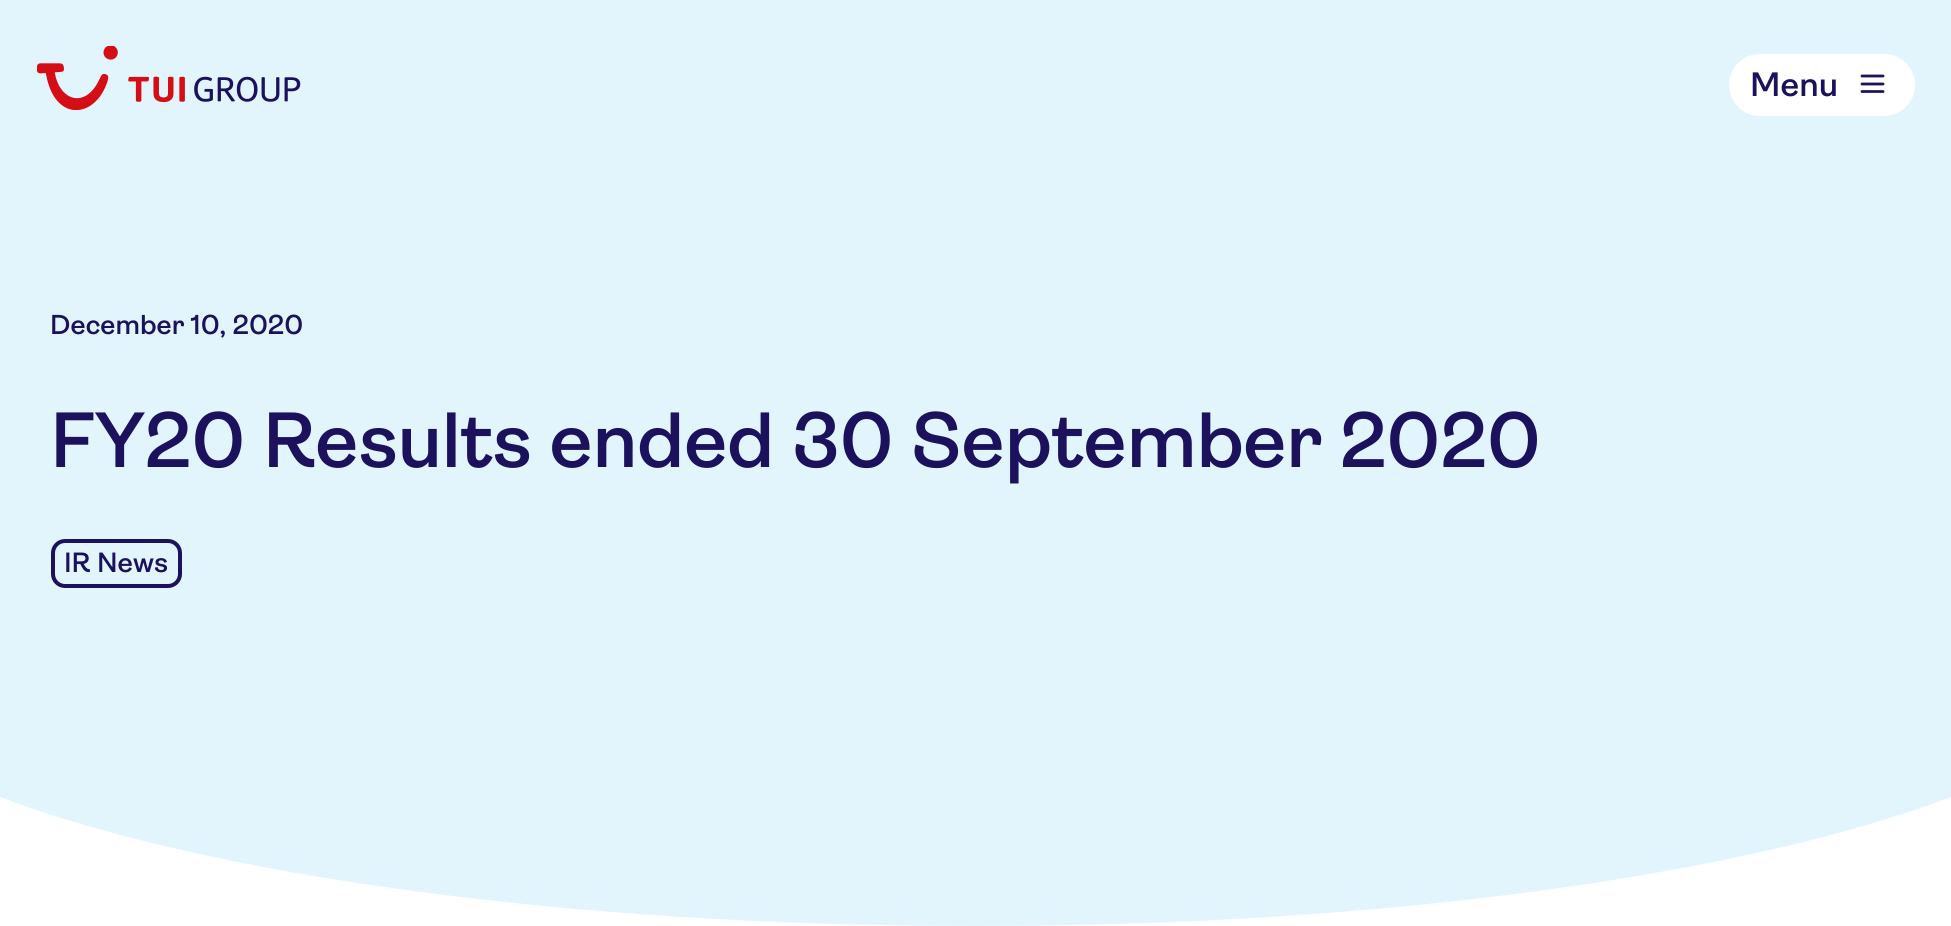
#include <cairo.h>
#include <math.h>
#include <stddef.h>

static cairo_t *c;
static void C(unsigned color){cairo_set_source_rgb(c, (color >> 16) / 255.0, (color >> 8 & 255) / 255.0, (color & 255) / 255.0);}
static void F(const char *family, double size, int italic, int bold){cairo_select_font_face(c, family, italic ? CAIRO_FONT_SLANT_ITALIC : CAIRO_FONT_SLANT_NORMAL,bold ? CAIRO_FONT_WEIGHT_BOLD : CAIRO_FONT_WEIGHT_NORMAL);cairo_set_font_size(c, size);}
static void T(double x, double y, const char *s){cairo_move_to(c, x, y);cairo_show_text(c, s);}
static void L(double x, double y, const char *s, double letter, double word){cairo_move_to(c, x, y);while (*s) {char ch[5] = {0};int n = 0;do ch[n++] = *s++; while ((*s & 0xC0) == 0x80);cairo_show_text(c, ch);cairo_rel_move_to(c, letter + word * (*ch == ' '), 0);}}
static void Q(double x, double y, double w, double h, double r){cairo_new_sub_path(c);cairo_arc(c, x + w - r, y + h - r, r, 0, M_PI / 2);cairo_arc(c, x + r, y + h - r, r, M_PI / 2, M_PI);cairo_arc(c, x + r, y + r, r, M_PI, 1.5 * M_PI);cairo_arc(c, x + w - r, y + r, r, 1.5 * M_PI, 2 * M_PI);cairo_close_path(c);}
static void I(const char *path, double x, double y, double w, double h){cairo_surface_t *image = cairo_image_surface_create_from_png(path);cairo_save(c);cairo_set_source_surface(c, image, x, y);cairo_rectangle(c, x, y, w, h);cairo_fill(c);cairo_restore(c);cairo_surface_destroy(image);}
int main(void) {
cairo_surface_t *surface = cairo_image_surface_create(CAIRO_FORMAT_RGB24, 1951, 926);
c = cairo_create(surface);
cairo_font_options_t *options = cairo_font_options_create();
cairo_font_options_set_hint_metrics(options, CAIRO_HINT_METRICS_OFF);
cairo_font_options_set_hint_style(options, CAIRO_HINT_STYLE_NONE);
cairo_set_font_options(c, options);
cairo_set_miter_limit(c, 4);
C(0xe2f5fd);
cairo_paint(c);
I("1.png",37,46,264,64);
C(0xffffff);
Q(1729,54,186,62,31);
cairo_fill(c);
F("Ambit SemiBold",34,0,0);
C(0x1b115c);
T(1750,96,"Menu");
cairo_new_path(c);
cairo_move_to(c,1862,76);
cairo_line_to(c,1883,76);
cairo_move_to(c,1862,84);
cairo_line_to(c,1883,84);
cairo_move_to(c,1862,91.5);
cairo_line_to(c,1883,91.5);
cairo_set_line_width(c,2.8);
cairo_set_line_cap(c,CAIRO_LINE_CAP_ROUND);
cairo_set_line_join(c,CAIRO_LINE_JOIN_ROUND);
cairo_stroke(c);
F("Ambit SemiBold",27.5,0,0);
T(50,334,"December 10, 2020");
F("Ambit SemiBold",78.5,0,0);
L(50,467,"FY20 Results ended 30 September 2020",-.35,0);
Q(53,541,127,45,12);
cairo_set_line_width(c,4);
cairo_set_line_cap(c,CAIRO_LINE_CAP_BUTT);
cairo_set_line_join(c,CAIRO_LINE_JOIN_MITER);
cairo_stroke(c);
F("Ambit SemiBold",28,0,0);
T(64,572,"IR News");
C(0xffffff);
cairo_new_path(c);
cairo_move_to(c,1951,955);
cairo_line_to(c,1951,797);
cairo_curve_to(c,1745,875,1385,926,976,926);
cairo_curve_to(c,566,926,206,875,0,797);
cairo_line_to(c,0,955);
cairo_close_path(c);
cairo_fill(c);
cairo_surface_write_to_png(surface, "o.png");
cairo_font_options_destroy(options);
cairo_destroy(c);
cairo_surface_destroy(surface);
return 0;
}
